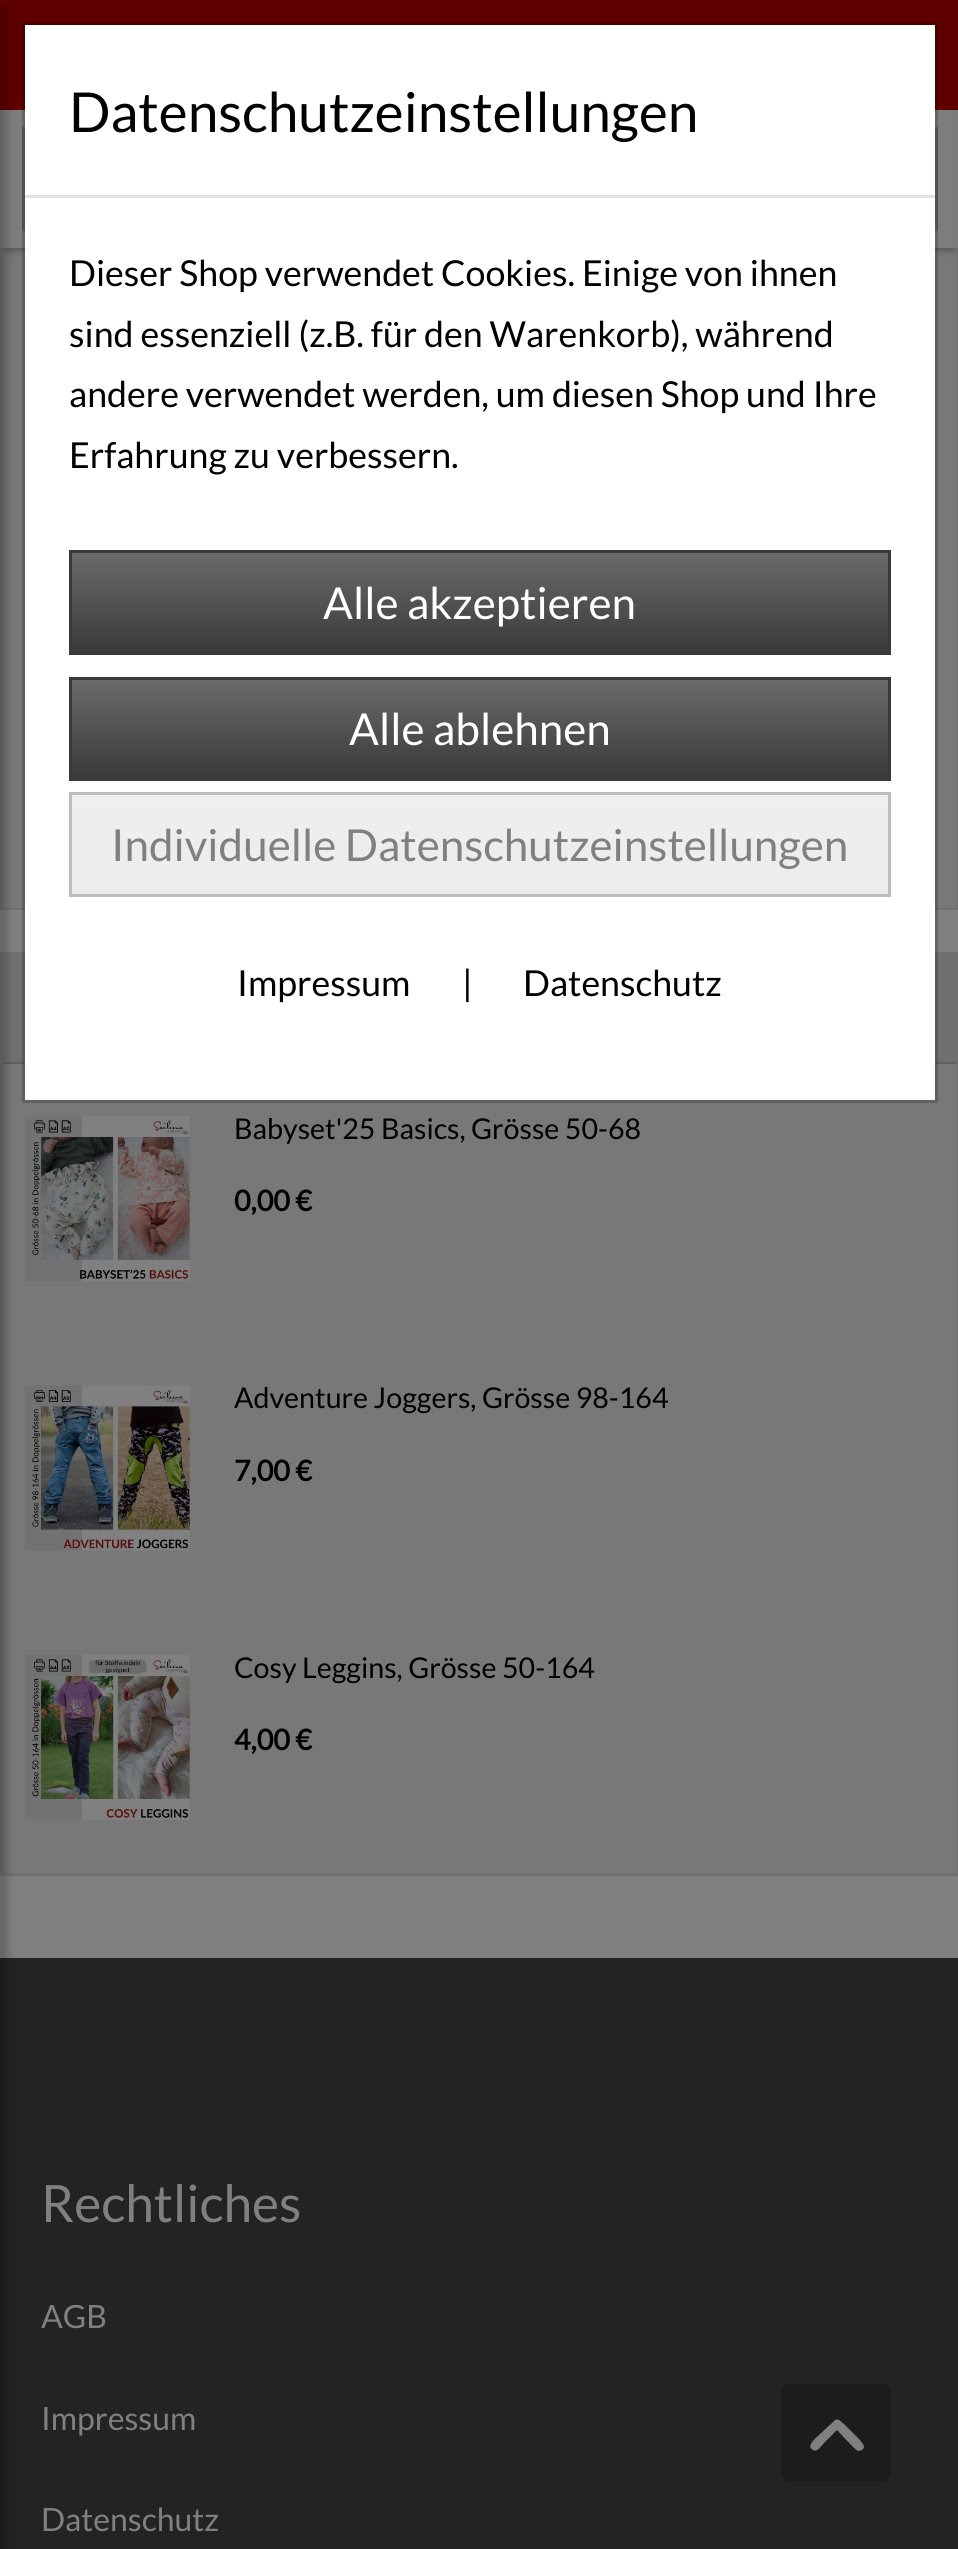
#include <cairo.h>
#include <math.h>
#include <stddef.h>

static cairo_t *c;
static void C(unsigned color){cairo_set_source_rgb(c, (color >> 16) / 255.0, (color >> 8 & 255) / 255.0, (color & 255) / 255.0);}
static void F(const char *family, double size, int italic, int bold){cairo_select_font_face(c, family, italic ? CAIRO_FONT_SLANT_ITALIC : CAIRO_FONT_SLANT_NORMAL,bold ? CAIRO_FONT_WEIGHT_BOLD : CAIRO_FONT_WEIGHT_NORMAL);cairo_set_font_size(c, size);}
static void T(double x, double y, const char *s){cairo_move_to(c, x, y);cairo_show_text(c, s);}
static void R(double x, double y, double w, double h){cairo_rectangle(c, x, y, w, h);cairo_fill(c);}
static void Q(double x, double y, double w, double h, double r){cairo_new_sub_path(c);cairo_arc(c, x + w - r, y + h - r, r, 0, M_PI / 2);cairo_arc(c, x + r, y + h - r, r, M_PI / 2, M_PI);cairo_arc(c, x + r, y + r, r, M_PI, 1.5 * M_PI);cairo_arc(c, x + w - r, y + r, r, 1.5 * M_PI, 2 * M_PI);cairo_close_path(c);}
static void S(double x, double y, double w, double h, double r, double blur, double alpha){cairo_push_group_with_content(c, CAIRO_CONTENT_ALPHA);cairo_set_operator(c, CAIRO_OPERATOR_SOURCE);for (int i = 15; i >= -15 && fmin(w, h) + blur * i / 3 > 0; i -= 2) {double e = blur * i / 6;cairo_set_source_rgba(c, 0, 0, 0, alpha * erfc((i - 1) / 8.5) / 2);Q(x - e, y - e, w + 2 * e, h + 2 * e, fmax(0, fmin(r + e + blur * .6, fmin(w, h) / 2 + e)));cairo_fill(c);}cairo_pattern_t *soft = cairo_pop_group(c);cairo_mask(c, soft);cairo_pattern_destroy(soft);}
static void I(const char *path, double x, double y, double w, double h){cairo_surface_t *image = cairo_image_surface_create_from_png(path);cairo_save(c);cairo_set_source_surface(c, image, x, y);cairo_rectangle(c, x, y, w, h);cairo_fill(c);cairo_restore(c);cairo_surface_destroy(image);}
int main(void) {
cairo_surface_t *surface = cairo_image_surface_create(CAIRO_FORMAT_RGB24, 958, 2549);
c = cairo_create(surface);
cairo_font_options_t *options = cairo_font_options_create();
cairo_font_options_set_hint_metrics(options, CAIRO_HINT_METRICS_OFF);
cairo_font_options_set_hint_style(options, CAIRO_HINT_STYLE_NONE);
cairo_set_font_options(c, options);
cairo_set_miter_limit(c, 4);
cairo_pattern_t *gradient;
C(0x808080);
cairo_paint(c);
cairo_rectangle(c,1.5,-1.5,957,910);
C(0x707070);
cairo_set_line_width(c,3);
cairo_stroke(c);
C(0x5e0000);
R(0,0,958,110);
C(0x797878);
R(3,110,954,798);
cairo_save(c);
cairo_set_fill_rule(c,CAIRO_FILL_RULE_EVEN_ODD);
cairo_new_path(c);
cairo_move_to(c,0,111);
cairo_line_to(c,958,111);
cairo_line_to(c,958,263);
cairo_line_to(c,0,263);
cairo_close_path(c);
cairo_move_to(c,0,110);
cairo_line_to(c,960,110);
cairo_line_to(c,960,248);
cairo_line_to(c,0,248);
cairo_close_path(c);
cairo_clip(c);
C(0x3c3c3c);
S(6,124,948,126,0,4,.7);
cairo_restore(c);
cairo_set_source_rgba(c,0.502,0.502,0.502,0.7);
R(0,110,958,138);
cairo_set_source_rgba(c,0.463,0.463,0.463,0.7);
R(22,129,3,102);
gradient = cairo_pattern_create_linear(77,30,77,129);
cairo_pattern_add_color_stop_rgba(gradient,0,0.471,0.471,0.471,1);
cairo_pattern_add_color_stop_rgba(gradient,1,0.467,0.467,0.467,1);
cairo_set_source(c,gradient);
cairo_pattern_destroy(gradient);
R(22,127,3,2);
cairo_rectangle(c,23.5,128.5,107,101);
cairo_set_source_rgba(c,0.369,0.369,0.369,0.7);
cairo_stroke(c);
cairo_rectangle(c,818.5,128.5,118,101);
C(0x666666);
cairo_stroke(c);
cairo_rectangle(c,1.5,953.5,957,921);
C(0x707070);
cairo_stroke(c);
R(3,955,954,107);
C(0x626262);
R(3,1062,954,2);
C(0x797878);
R(3,1064,954,809);
C(0xffffff);
R(25,25,910,1075);
cairo_rectangle(c,23.5,23.5,913,1078);
cairo_set_source_rgba(c,0,0,0,0.2);
cairo_stroke(c);
C(0xdee2e6);
R(25,195,910,3);
F("Lato",55,0,0);
C(0x000000);
T(69,132,"Datenschutzeinstellungen");
F("Lato",35.75,0,0);
T(69,286,"Dieser Shop verwendet Cookies. Einige von ihnen");
T(69,347,"sind essenziell (z.B. für den Warenkorb), während");
T(69,407,"andere verwendet werden, um diesen Shop und Ihre");
T(69,468,"Erfahrung zu verbessern.");
gradient = cairo_pattern_create_linear(480,553,480,652);
cairo_pattern_add_color_stop_rgba(gradient,0,0.416,0.416,0.416,1);
cairo_pattern_add_color_stop_rgba(gradient,1,0.227,0.227,0.227,1);
cairo_set_source(c,gradient);
cairo_pattern_destroy(gradient);
R(72,553,816,99);
cairo_rectangle(c,70.5,551.5,819,102);
C(0x3a3a3a);
cairo_stroke(c);
F("Lato",44,0,0);
C(0xffffff);
T(323,619,"Alle akzeptieren");
gradient = cairo_pattern_create_linear(480,679,480,778);
cairo_pattern_add_color_stop_rgba(gradient,0,0.416,0.416,0.416,1);
cairo_pattern_add_color_stop_rgba(gradient,1,0.227,0.227,0.227,1);
cairo_set_source(c,gradient);
cairo_pattern_destroy(gradient);
R(72,680,816,98);
cairo_rectangle(c,70.5,678.5,819,101);
C(0x3a3a3a);
cairo_stroke(c);
C(0xffffff);
T(349,745,"Alle ablehnen");
gradient = cairo_pattern_create_linear(480,795,480,894);
cairo_pattern_add_color_stop_rgba(gradient,0,0.937,0.937,0.937,1);
cairo_pattern_add_color_stop_rgba(gradient,1,0.925,0.925,0.925,1);
cairo_set_source(c,gradient);
cairo_pattern_destroy(gradient);
R(72,795,816,99);
cairo_rectangle(c,70.5,793.5,819,102);
C(0xbcbcbc);
cairo_stroke(c);
C(0x808080);
T(111,861,"Individuelle Datenschutzeinstellungen");
F("Lato",35.75,0,0);
C(0x000000);
T(237,996,"Impressum");
T(462,996,"|");
T(523,996,"Datenschutz");
C(0x242323);
R(0,1958,958,591);
C(0x000000);
S(-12,8,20,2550,0,4,.2);
I("1.png",25,1116,165,165);
F("Lato",28.6,0,0);
C(0x000000);
T(234,1139,"Babyset'25 Basics, Grösse 50-68");
F("Lato",28.6,0,1);
T(234,1211,"0,00 €");
I("2.png",25,1385,165,166);
F("Lato",28.6,0,0);
T(234,1408,"Adventure Joggers, Grösse 98-164");
F("Lato",28.6,0,1);
T(234,1481,"7,00 €");
I("3.png",25,1655,165,165);
F("Lato",28.6,0,0);
T(234,1678,"Cosy Leggins, Grösse 50-164");
F("Lato",28.6,0,1);
T(234,1750,"4,00 €");
F("Lato",51.5,0,0);
C(0x808080);
T(41,2222,"Rechtliches");
F("Lato",32,0,0);
T(41,2328,"AGB");
T(41,2430,"Impressum");
T(41,2531,"Datenschutz");
C(0x1d1c1c);
Q(781,2384,110,97,8);
cairo_fill(c);
C(0x808080);
cairo_new_path(c);
cairo_move_to(c,834,2421);
cairo_curve_to(c,838,2417,841,2422,844,2424);
cairo_line_to(c,859,2439);
cairo_curve_to(c,861,2442,866,2446,863,2449);
cairo_curve_to(c,862,2450,860,2451,858,2451);
cairo_curve_to(c,855,2450,840,2433,837,2430);
cairo_line_to(c,824,2443);
cairo_curve_to(c,822,2445,817,2453,813,2450);
cairo_curve_to(c,805,2446,817,2437,819,2435);
cairo_close_path(c);
cairo_fill(c);
cairo_surface_write_to_png(surface, "o.png");
cairo_font_options_destroy(options);
cairo_destroy(c);
cairo_surface_destroy(surface);
return 0;
}
